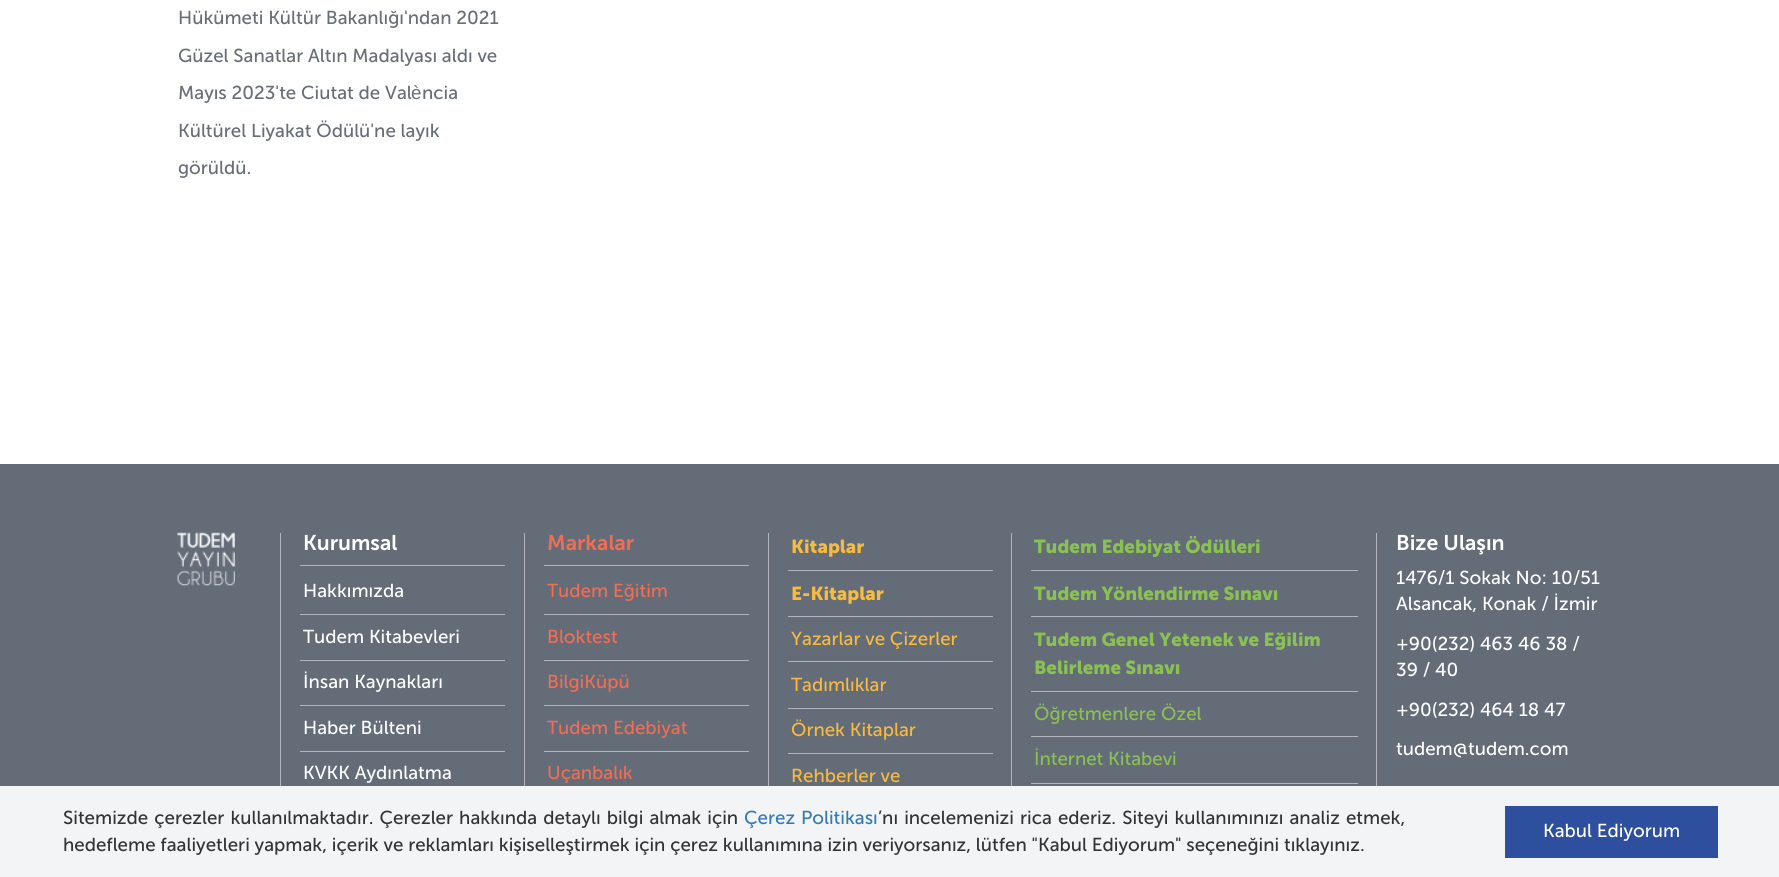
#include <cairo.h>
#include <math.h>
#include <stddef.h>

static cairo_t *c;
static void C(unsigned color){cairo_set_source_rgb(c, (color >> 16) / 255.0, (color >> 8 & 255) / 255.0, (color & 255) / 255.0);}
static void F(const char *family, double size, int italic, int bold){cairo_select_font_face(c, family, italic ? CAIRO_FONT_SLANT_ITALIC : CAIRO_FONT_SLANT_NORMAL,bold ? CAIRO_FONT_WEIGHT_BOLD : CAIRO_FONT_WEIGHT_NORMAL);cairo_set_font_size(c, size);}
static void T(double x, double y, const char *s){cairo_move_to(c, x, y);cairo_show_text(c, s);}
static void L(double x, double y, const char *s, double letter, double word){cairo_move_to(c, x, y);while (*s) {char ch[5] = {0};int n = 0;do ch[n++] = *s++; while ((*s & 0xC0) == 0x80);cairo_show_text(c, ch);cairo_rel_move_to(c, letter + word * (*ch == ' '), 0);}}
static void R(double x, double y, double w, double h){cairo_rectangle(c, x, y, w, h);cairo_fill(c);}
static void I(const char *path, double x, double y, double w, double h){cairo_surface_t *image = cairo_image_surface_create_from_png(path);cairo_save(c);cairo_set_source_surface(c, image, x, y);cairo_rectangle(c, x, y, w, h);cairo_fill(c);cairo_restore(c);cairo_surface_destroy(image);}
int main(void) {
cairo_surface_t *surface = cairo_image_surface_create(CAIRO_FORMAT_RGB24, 1779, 877);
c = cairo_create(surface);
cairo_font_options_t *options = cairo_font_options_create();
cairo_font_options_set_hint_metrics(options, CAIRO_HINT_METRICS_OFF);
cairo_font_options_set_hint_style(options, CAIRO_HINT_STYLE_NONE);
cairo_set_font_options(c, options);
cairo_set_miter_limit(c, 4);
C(0xffffff);
cairo_paint(c);
F("Museo Sans",18.75,0,0);
C(0x686e77);
T(178,24,"Hükümeti Kültür Bakanlığı'ndan 2021");
T(178,62,"Güzel Sanatlar Altın Madalyası aldı ve");
T(178,99,"Mayıs 2023'te Ciutat de Val");
F("Liberation Sans",18.75,0,0);
T(411,99,"è");
F("Museo Sans",18.75,0,0);
T(422,99,"ncia");
T(178,137,"Kültürel Liyakat Ödülü'ne layık");
T(178,174,"görüldü.");
C(0x646c78);
R(0,464,1779,322);
C(0xb2b6bc);
R(280,533,1,253);
I("1.png",177,532,58,54);
R(524,533,1,253);
R(300,565,205,1);
F("Museo Sans SemiBold",21.25,0,0);
C(0xffffff);
T(303,550,"Kurumsal");
C(0xb2b6bc);
R(300,614,205,1);
F("Museo Sans",18.75,0,0);
C(0xffffff);
T(303,597,"Hakkımızda");
C(0xb2b6bc);
R(300,660,205,1);
C(0xffffff);
T(303,643,"Tudem Kitabevleri");
C(0xb2b6bc);
R(300,705,205,1);
C(0xffffff);
T(303,688,"İnsan Kaynakları");
C(0xb2b6bc);
R(300,751,205,1);
C(0xffffff);
T(303,734,"Haber Bülteni");
T(303,779,"KVKK Aydınlatma");
C(0xb2b6bc);
R(768,533,1,253);
R(544,565,205,1);
F("Museo Sans SemiBold",21.25,0,0);
C(0xf26d53);
T(547,550,"Markalar");
C(0xb2b6bc);
R(544,614,205,1);
F("Museo Sans",18.75,0,0);
C(0xf26d53);
T(547,597,"Tudem Eğitim");
C(0xb2b6bc);
R(544,660,205,1);
C(0xf26d53);
T(547,643,"Bloktest");
C(0xb2b6bc);
R(544,705,205,1);
C(0xf26d53);
T(547,688,"BilgiKüpü");
C(0xb2b6bc);
R(544,751,205,1);
C(0xf26d53);
T(547,734,"Tudem Edebiyat");
T(547,779,"Uçanbalık");
C(0xb2b6bc);
R(1011,533,1,253);
R(788,570,205,1);
F("Museo Sans",18.75,0,1);
C(0xf7bb40);
T(791,553,"Kitaplar");
C(0xb2b6bc);
R(788,616,205,1);
C(0xf7bb40);
T(791,600,"E-Kitaplar");
C(0xb2b6bc);
R(788,661,205,1);
F("Museo Sans",18.75,0,0);
C(0xf7bb40);
T(791,645,"Yazarlar ve Çizerler");
C(0xb2b6bc);
R(788,708,205,1);
C(0xf7bb40);
T(791,691,"Tadımlıklar");
C(0xb2b6bc);
R(788,753,205,1);
C(0xf7bb40);
T(791,736,"Örnek Kitaplar");
T(791,782,"Rehberler ve");
C(0xb2b6bc);
R(1376,533,1,253);
R(1031,570,327,1);
F("Museo Sans",18.75,0,1);
C(0x8bc152);
T(1034,553,"Tudem Edebiyat Ödülleri");
C(0xb2b6bc);
R(1031,616,327,1);
C(0x8bc152);
T(1034,600,"Tudem Yönlendirme Sınavı");
C(0xb2b6bc);
R(1031,691,327,1);
C(0x8bc152);
T(1034,646,"Tudem Genel Yetenek ve Eğilim");
T(1034,674,"Belirleme Sınavı");
C(0xb2b6bc);
R(1031,736,327,1);
F("Museo Sans",18.75,0,0);
C(0x8bc152);
T(1034,720,"Öğretmenlere Özel");
C(0xb2b6bc);
R(1031,783,327,1);
C(0x8bc152);
T(1034,765,"İnternet Kitabevi");
F("Museo Sans SemiBold",21.25,0,0);
C(0xffffff);
T(1396,550,"Bize Ulaşın");
F("Museo Sans",18.75,0,0);
T(1396,584,"1476/1 Sokak No: 10/51");
T(1396,610,"Alsancak, Konak / İzmir");
T(1396,650,"+90(232) 463 46 38 /");
T(1396,676,"39 / 40");
T(1396,716,"+90(232) 464 18 47");
T(1396,755,"tudem@tudem.com");
C(0xf2f4f5);
R(0,786,1779,91);
C(0x333333);
L(63,824,"Sitemizde çerezler kullanılmaktadır. Çerezler hakkında detaylı bilgi almak için",0,1.25);
C(0x337ab7);
L(744,824,"Çerez Politikası",0,1);
C(0x333333);
L(878,824,"’nı incelemenizi rica ederiz. Siteyi kullanımınızı analiz etmek,",0,1.25);
T(63,851,"hedefleme faaliyetleri yapmak, içerik ve reklamları kişiselleştirmek için çerez kullanımına izin veriyorsanız, lütfen \"Kabul Ediyorum\" seçeneğini tıklayınız.");
C(0x2d4f9e);
R(1505,806,213,52);
C(0xffffff);
T(1543,837,"Kabul Ediyorum");
cairo_surface_write_to_png(surface, "o.png");
cairo_font_options_destroy(options);
cairo_destroy(c);
cairo_surface_destroy(surface);
return 0;
}
